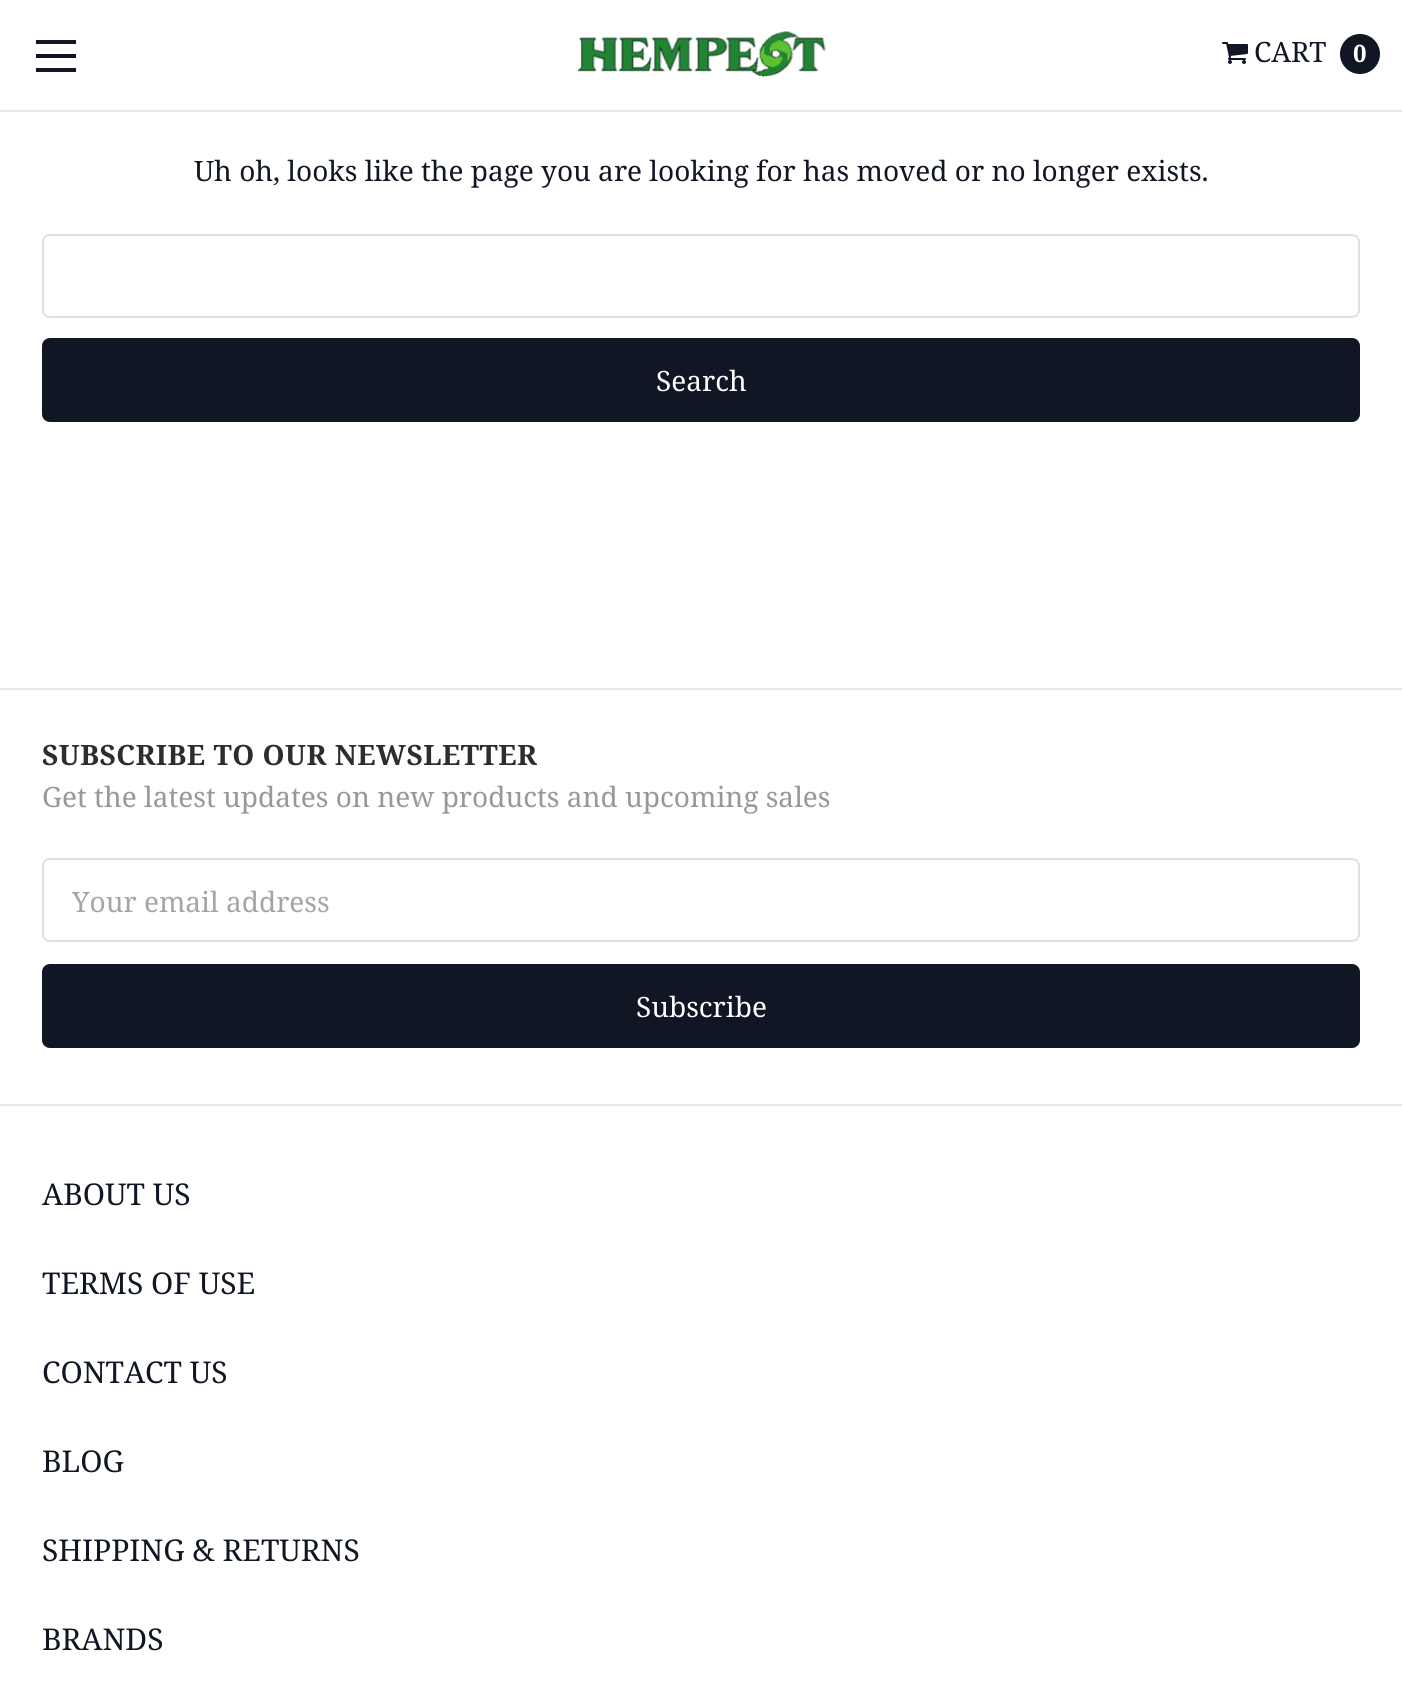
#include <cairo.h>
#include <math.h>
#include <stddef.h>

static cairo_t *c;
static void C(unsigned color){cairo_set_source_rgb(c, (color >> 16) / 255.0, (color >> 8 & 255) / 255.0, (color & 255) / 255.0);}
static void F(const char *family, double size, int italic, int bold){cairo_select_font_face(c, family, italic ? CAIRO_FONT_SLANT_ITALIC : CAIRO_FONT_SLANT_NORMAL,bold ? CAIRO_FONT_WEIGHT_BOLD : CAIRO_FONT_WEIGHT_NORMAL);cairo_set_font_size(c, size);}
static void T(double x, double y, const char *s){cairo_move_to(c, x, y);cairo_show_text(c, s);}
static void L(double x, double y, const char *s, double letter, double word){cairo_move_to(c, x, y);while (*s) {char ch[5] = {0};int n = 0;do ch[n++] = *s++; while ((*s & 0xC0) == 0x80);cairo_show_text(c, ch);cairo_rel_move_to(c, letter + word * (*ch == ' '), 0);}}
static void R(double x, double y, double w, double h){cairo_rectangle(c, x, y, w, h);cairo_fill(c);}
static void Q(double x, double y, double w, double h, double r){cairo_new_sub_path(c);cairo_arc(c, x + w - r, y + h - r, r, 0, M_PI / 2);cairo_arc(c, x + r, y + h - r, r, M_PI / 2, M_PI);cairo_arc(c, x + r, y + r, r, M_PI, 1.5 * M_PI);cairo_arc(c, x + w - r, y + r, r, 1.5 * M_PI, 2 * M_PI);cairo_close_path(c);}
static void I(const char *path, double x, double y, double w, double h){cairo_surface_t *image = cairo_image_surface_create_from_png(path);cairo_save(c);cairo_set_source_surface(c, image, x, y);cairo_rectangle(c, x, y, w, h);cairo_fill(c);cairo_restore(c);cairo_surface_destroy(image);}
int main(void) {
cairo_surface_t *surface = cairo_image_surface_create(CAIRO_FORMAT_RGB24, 1402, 1694);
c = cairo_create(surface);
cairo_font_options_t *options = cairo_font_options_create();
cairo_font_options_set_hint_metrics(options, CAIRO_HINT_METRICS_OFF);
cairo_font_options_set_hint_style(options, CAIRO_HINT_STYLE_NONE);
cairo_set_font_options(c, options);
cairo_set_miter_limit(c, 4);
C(0xffffff);
cairo_paint(c);
C(0xe8e8e8);
R(0,110,1402,2);
C(0x101623);
R(36,54,40,4);
R(36,40,40,4);
R(36,68,40,4);
I("1.png",577,31,249,46);
I("2.png",1222,42,26,22);
F("Noto Serif",28,0,0);
T(1254,62,"CART");
cairo_new_path(c);
cairo_arc(c,1360,54,20,0,2 * M_PI);
cairo_fill(c);
F("Noto Serif",24,0,1);
C(0xffffff);
T(1353,62,"0");
F("Noto Serif",28,0,0);
C(0x101623);
T(194,181,"Uh oh, looks like the page you are looking for has moved or no longer exists.");
Q(43,235,1316,82,7);
C(0xdfdfdf);
cairo_stroke(c);
C(0x101623);
Q(43,339,1316,82,7);
cairo_fill_preserve(c);
cairo_stroke(c);
C(0xffffff);
T(656,391,"Search");
C(0xe8e8e8);
R(0,688,1402,2);
F("Noto Serif",28,0,1);
C(0x2d2d2d);
L(42,765,"SUBSCRIBE TO OUR NEWSLETTER",.5,0);
F("Noto Serif",28,0,0);
C(0x989898);
T(42,807,"Get the latest updates on new products and upcoming sales");
Q(43,859,1316,82,7);
C(0xdfdfdf);
cairo_stroke(c);
C(0xa5a5a5);
T(72,912,"Your email address");
C(0x101623);
Q(43,965,1316,82,7);
cairo_fill_preserve(c);
cairo_stroke(c);
C(0xffffff);
T(636,1017,"Subscribe");
C(0xe8e8e8);
R(0,1104,1402,2);
F("Noto Serif",30,0,0);
C(0x101623);
T(42,1205,"ABOUT US");
T(42,1294,"TERMS OF USE");
T(42,1383,"CONTACT US");
T(42,1472,"BLOG");
T(42,1561,"SHIPPING & RETURNS");
T(42,1650,"BRANDS");
cairo_surface_write_to_png(surface, "o.png");
cairo_font_options_destroy(options);
cairo_destroy(c);
cairo_surface_destroy(surface);
return 0;
}
